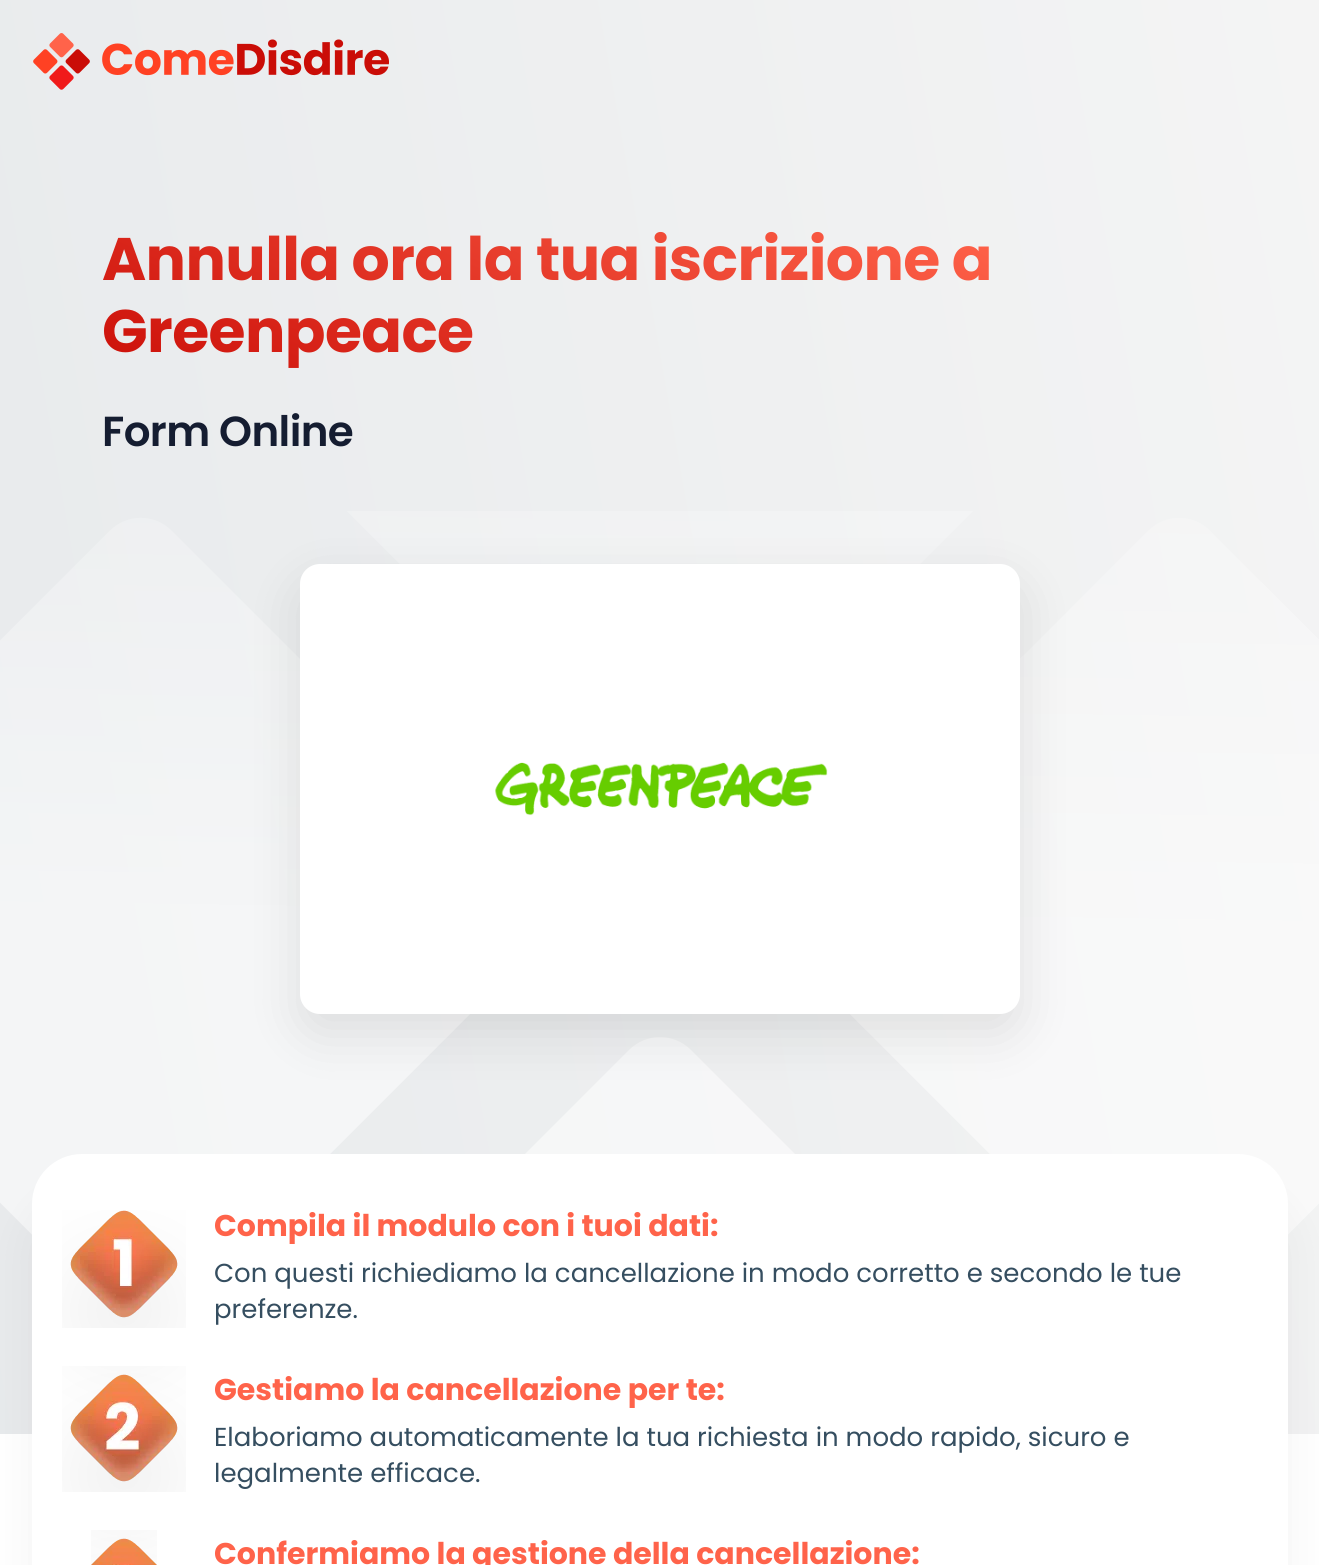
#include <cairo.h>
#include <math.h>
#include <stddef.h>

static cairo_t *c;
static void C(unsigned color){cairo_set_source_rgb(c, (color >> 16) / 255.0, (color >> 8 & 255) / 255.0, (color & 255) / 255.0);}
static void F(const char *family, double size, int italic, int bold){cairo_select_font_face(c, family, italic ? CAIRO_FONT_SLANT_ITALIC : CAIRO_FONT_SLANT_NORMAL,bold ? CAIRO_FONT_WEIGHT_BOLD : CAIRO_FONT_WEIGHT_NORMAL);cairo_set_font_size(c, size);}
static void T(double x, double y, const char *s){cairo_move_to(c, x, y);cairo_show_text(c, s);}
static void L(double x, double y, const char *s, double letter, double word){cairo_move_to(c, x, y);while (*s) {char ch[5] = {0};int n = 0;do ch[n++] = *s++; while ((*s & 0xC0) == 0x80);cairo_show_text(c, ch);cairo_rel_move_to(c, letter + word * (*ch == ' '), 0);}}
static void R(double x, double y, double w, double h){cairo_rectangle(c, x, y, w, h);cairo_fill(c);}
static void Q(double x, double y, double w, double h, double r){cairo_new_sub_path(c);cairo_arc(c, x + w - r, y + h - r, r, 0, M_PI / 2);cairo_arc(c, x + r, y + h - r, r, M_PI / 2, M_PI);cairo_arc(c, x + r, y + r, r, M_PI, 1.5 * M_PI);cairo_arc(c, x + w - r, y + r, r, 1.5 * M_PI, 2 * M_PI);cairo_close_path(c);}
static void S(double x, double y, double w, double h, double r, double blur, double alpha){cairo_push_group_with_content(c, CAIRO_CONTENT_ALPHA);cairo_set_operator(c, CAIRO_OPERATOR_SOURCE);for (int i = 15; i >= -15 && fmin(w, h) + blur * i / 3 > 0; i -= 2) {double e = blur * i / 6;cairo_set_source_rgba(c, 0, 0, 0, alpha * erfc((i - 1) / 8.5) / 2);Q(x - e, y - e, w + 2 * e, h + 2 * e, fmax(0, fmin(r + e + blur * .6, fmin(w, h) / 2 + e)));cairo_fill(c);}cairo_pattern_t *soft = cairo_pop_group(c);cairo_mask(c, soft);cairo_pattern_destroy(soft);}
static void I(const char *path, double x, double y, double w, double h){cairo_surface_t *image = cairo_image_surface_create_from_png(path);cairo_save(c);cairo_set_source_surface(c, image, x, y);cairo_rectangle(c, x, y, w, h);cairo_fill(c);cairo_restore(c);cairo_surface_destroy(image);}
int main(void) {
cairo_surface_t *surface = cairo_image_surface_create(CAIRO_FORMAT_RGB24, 1319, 1565);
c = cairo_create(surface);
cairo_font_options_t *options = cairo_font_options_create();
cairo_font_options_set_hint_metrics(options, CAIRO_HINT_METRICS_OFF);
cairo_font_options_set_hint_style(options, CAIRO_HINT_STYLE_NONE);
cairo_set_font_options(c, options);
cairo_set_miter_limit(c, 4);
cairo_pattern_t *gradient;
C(0xffffff);
cairo_paint(c);
gradient = cairo_pattern_create_linear(-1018,1013,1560,558);
cairo_pattern_add_color_stop_rgba(gradient,0,0.878,0.894,0.906,1);
cairo_pattern_add_color_stop_rgba(gradient,1,0.961,0.961,0.961,1);
cairo_set_source(c,gradient);
cairo_pattern_destroy(gradient);
R(0,0,1319,1434);
I("1.png",33,33,356,57);
F("Poppins",60,0,1);
gradient = cairo_pattern_create_linear(560,600,830,13);
cairo_pattern_add_color_stop_rgba(gradient,0,0.792,0.051,0.027,1);
cairo_pattern_add_color_stop_rgba(gradient,.8,1,0.388,0.29,1);
cairo_set_source(c,gradient);
cairo_pattern_destroy(gradient);
L(102,280,"Annulla ora la tua iscrizione a",-.6,0);
L(102,352,"Greenpeace",-.6,0);
F("Poppins SemiBold",42,0,0);
C(0x151d31);
L(102,446,"Form Online",-.6,0);
I("3.png",0,511,1319,724);
C(0x000000);
S(300,584,720,450,20,25,.1);
C(0xffffff);
Q(300,564,720,450,20);
cairo_fill(c);
I("2.png",495,762,333,54);
C(0x000000);
S(32,1200,1256,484,50,23,.05);
C(0xffffff);
Q(32,1154,1256,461,50);
cairo_fill(c);
I("4.png",62,1210,124,118);
F("Poppins",30,0,1);
C(0xff634a);
T(214,1236,"Compila il modulo con i tuoi dati:");
F("Poppins",26,0,0);
C(0x354e60);
T(214,1282,"Con questi richiediamo la cancellazione in modo corretto e secondo le tue");
T(214,1318,"preferenze.");
I("5.png",62,1366,124,126);
F("Poppins",30,0,1);
C(0xff634a);
T(214,1400,"Gestiamo la cancellazione per te:");
F("Poppins",26,0,0);
C(0x354e60);
T(214,1446,"Elaboriamo automaticamente la tua richiesta in modo rapido, sicuro e");
T(214,1482,"legalmente efficace.");
I("6.png",91,1530,66,35);
F("Poppins",30,0,1);
C(0xff634a);
T(214,1564,"Confermiamo la gestione della cancellazione:");
cairo_surface_write_to_png(surface, "o.png");
cairo_font_options_destroy(options);
cairo_destroy(c);
cairo_surface_destroy(surface);
return 0;
}
